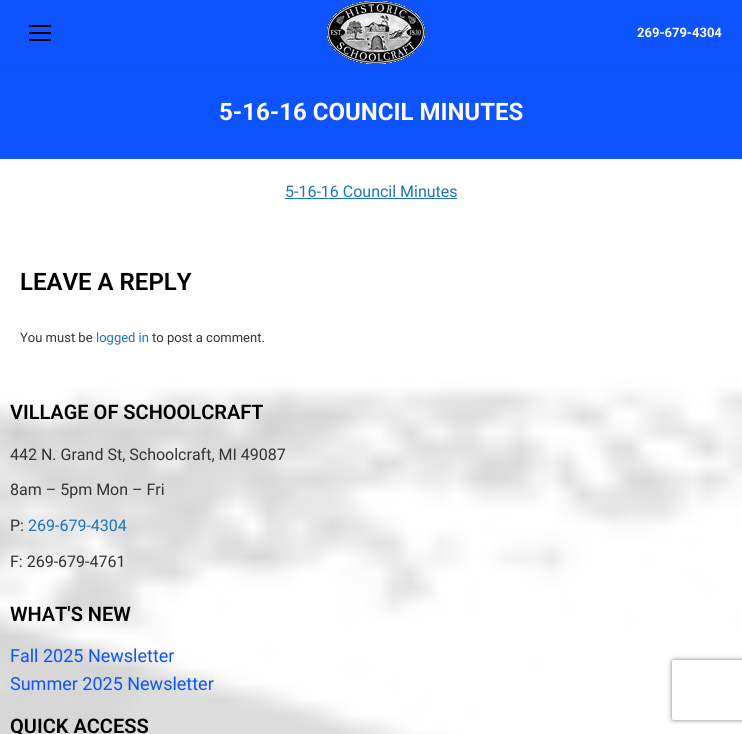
#include <cairo.h>
#include <math.h>
#include <stddef.h>

static cairo_t *c;
static void C(unsigned color){cairo_set_source_rgb(c, (color >> 16) / 255.0, (color >> 8 & 255) / 255.0, (color & 255) / 255.0);}
static void F(const char *family, double size, int italic, int bold){cairo_select_font_face(c, family, italic ? CAIRO_FONT_SLANT_ITALIC : CAIRO_FONT_SLANT_NORMAL,bold ? CAIRO_FONT_WEIGHT_BOLD : CAIRO_FONT_WEIGHT_NORMAL);cairo_set_font_size(c, size);}
static void T(double x, double y, const char *s){cairo_move_to(c, x, y);cairo_show_text(c, s);}
static void R(double x, double y, double w, double h){cairo_rectangle(c, x, y, w, h);cairo_fill(c);}
static void Q(double x, double y, double w, double h, double r){cairo_new_sub_path(c);cairo_arc(c, x + w - r, y + h - r, r, 0, M_PI / 2);cairo_arc(c, x + r, y + h - r, r, M_PI / 2, M_PI);cairo_arc(c, x + r, y + r, r, M_PI, 1.5 * M_PI);cairo_arc(c, x + w - r, y + r, r, 1.5 * M_PI, 2 * M_PI);cairo_close_path(c);}
static void S(double x, double y, double w, double h, double r, double blur, double alpha){cairo_push_group_with_content(c, CAIRO_CONTENT_ALPHA);cairo_set_operator(c, CAIRO_OPERATOR_SOURCE);for (int i = 15; i >= -15 && fmin(w, h) + blur * i / 3 > 0; i -= 2) {double e = blur * i / 6;cairo_set_source_rgba(c, 0, 0, 0, alpha * erfc((i - 1) / 8.5) / 2);Q(x - e, y - e, w + 2 * e, h + 2 * e, fmax(0, fmin(r + e + blur * .6, fmin(w, h) / 2 + e)));cairo_fill(c);}cairo_pattern_t *soft = cairo_pop_group(c);cairo_mask(c, soft);cairo_pattern_destroy(soft);}
static void I(const char *path, double x, double y, double w, double h){cairo_surface_t *image = cairo_image_surface_create_from_png(path);cairo_save(c);cairo_set_source_surface(c, image, x, y);cairo_rectangle(c, x, y, w, h);cairo_fill(c);cairo_restore(c);cairo_surface_destroy(image);}
int main(void) {
cairo_surface_t *surface = cairo_image_surface_create(CAIRO_FORMAT_RGB24, 742, 734);
c = cairo_create(surface);
cairo_font_options_t *options = cairo_font_options_create();
cairo_font_options_set_hint_metrics(options, CAIRO_HINT_METRICS_OFF);
cairo_font_options_set_hint_style(options, CAIRO_HINT_STYLE_NONE);
cairo_set_font_options(c, options);
cairo_set_miter_limit(c, 4);
C(0xffffff);
cairo_paint(c);
C(0x0d53fe);
R(0,65,742,94);
C(0x000000);
S(-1,-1,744,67,0,7.5,.07);
C(0x0d53fe);
R(0,0,742,65);
C(0x000000);
R(29,25,22,2);
R(29,32,22,2);
R(29,39,22,2);
I("1.png",327,1,98,63);
F("Roboto",13,0,1);
C(0xffffff);
T(637,37,"269-679-4304");
F("Roboto",24,0,1);
T(219,120,"5-16-16 COUNCIL MINUTES");
F("Roboto",16,0,0);
C(0x1e73be);
T(285,197,"5-16-16 Council Minutes");
R(285,198,172,1);
F("Roboto SemiBold",24,0,0);
C(0x000000);
T(20,290,"LEAVE A REPLY");
F("Roboto",13,0,0);
C(0x333333);
T(20,342,"You must be");
C(0x1e73be);
T(96,342,"logged in");
C(0x333333);
T(152,342,"to post a comment.");
I("2.png",0,377,742,357);
F("Roboto SemiBold",20,0,0);
C(0x000000);
T(10,419,"VILLAGE OF SCHOOLCRAFT");
F("Roboto",16,0,0);
C(0x333333);
T(10,460,"442 N. Grand St, Schoolcraft, MI 49087");
T(10,495,"8am – 5pm Mon – Fri");
T(10,531,"P:");
C(0x1e73be);
T(28,531,"269-679-4304");
C(0x333333);
T(10,567,"F: 269-679-4761");
F("Roboto SemiBold",20,0,0);
C(0x000000);
T(10,621,"WHAT'S NEW");
F("Roboto",18,0,0);
C(0x0d53fe);
T(10,662,"Fall 2025 Newsletter");
T(10,690,"Summer 2025 Newsletter");
F("Roboto SemiBold",20,0,0);
C(0x000000);
T(10,733,"QUICK ACCESS");
cairo_save(c);
cairo_set_fill_rule(c,CAIRO_FILL_RULE_EVEN_ODD);
cairo_new_path(c);
cairo_move_to(c,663,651);
cairo_line_to(c,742,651);
cairo_line_to(c,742,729);
cairo_line_to(c,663,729);
cairo_close_path(c);
cairo_move_to(c,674,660);
cairo_line_to(c,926,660);
cairo_curve_to(c,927,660,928,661,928,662);
cairo_line_to(c,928,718);
cairo_curve_to(c,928,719,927,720,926,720);
cairo_line_to(c,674,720);
cairo_curve_to(c,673,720,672,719,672,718);
cairo_line_to(c,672,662);
cairo_curve_to(c,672,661,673,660,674,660);
cairo_close_path(c);
cairo_clip(c);
C(0x808080);
S(672,660,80,60,2,2.5,1);
cairo_restore(c);
cairo_surface_write_to_png(surface, "o.png");
cairo_font_options_destroy(options);
cairo_destroy(c);
cairo_surface_destroy(surface);
return 0;
}
